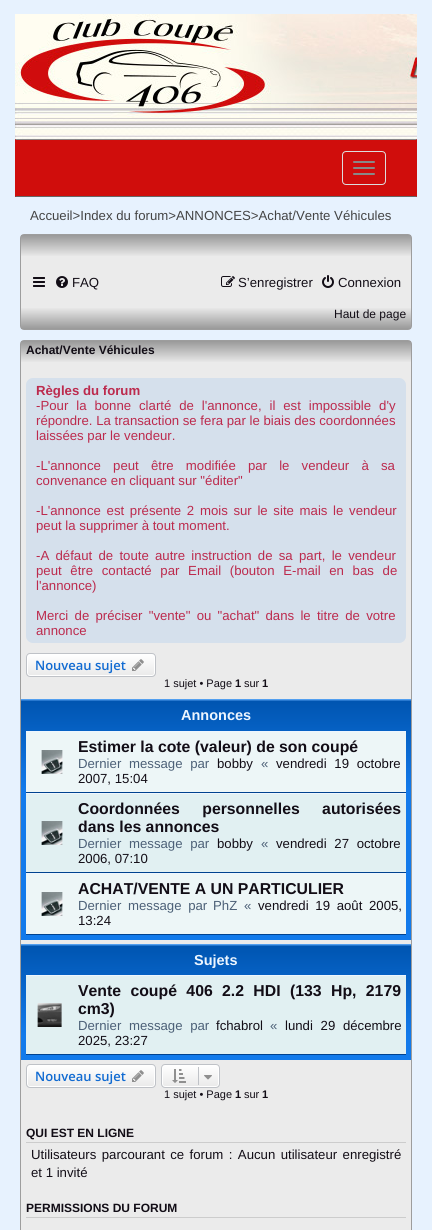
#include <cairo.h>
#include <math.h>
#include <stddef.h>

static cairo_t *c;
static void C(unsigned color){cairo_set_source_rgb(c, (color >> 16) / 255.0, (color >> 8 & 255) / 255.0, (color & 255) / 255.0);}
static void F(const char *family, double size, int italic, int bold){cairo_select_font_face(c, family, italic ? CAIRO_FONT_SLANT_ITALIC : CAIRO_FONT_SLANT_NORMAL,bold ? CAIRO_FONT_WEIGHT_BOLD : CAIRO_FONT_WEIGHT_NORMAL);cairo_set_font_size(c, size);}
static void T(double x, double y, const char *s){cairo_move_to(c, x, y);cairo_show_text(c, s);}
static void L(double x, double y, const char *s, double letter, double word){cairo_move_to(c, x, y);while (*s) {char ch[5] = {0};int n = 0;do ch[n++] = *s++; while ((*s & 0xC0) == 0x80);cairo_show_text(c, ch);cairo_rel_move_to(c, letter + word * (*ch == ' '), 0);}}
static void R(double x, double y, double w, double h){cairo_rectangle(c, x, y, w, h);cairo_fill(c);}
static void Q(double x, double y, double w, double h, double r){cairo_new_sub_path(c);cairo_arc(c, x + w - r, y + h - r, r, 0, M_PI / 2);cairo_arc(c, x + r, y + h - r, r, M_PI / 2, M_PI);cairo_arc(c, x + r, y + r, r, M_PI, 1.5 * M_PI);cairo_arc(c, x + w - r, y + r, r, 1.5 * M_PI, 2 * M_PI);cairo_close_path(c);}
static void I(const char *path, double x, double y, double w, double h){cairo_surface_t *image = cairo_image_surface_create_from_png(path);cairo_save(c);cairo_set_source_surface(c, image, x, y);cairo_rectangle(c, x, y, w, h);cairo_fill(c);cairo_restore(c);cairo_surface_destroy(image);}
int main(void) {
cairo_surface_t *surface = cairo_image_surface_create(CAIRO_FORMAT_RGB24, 432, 1230);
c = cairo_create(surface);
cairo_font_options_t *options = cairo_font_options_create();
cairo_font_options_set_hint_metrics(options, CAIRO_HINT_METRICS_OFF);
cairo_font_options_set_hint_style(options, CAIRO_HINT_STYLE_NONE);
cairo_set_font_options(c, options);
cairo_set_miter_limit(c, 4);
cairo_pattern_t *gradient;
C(0xe7f2fe);
cairo_paint(c);
I("1.png",15,14,402,125);
C(0xd00d0c);
R(15,139,402,58);
C(0x888888);
cairo_new_path(c);
cairo_move_to(c,15,139);
cairo_line_to(c,417,139);
cairo_line_to(c,416,140);
cairo_line_to(c,16,140);
cairo_close_path(c);
cairo_fill(c);
C(0x666666);
cairo_new_path(c);
cairo_move_to(c,417,197);
cairo_line_to(c,15,197);
cairo_line_to(c,16,196);
cairo_line_to(c,416,196);
cairo_close_path(c);
cairo_fill(c);
Q(342.5,151.5,43,33,3.5);
C(0xdddddd);
cairo_set_line_width(c,1);
cairo_stroke(c);
C(0x888888);
Q(353,161,22,2,1);
cairo_fill(c);
Q(353,167,22,2,1);
cairo_fill(c);
Q(353,173,22,2,1);
cairo_fill(c);
F("Liberation Sans",13.2,0,0);
C(0x444444);
T(30,220,"Accueil>Index du forum>ANNONCES>Achat/Vente Véhicules");
C(0xebebeb);
Q(20.5,234.5,391,95,3.5);
cairo_fill_preserve(c);
C(0x9d9d9d);
cairo_stroke(c);
gradient = cairo_pattern_create_linear(216,257,216,235);
cairo_pattern_add_color_stop_rgba(gradient,0,0.922,0.922,0.922,1);
cairo_pattern_add_color_stop_rgba(gradient,1,0.6,0.6,0.6,1);
cairo_set_source(c,gradient);
cairo_pattern_destroy(gradient);
R(21,235,390,21);
I("2.png",33,277,12,10);
I("3.png",56,276,12,12);
C(0x120d16);
T(72,287,"FAQ");
I("4.png",221,276,14,11);
T(238,287,"S’enregistrer");
I("5.png",322,275,12,13);
T(338,287,"Connexion");
gradient = cairo_pattern_create_linear(216,329,216,307);
cairo_pattern_add_color_stop_rgba(gradient,0,0.6,0.6,0.6,1);
cairo_pattern_add_color_stop_rgba(gradient,1,0.922,0.922,0.922,1);
cairo_set_source(c,gradient);
cairo_pattern_destroy(gradient);
R(21,308,390,21);
F("Liberation Sans",12,0,0);
C(0x120d16);
T(334,318,"Haut de page");
C(0xebebeb);
Q(20.5,340.5,391,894,3.5);
cairo_fill_preserve(c);
C(0x9d9d9d);
cairo_stroke(c);
gradient = cairo_pattern_create_linear(216,363,216,341);
cairo_pattern_add_color_stop_rgba(gradient,0,0.922,0.922,0.922,1);
cairo_pattern_add_color_stop_rgba(gradient,1,0.6,0.6,0.6,1);
cairo_set_source(c,gradient);
cairo_pattern_destroy(gradient);
R(21,341,390,21);
F("Liberation Sans",12,0,1);
C(0x120d16);
T(26,354,"Achat/Vente Véhicules");
C(0xd5e0ec);
Q(26,378,380,265,7);
cairo_fill(c);
F("Liberation Sans",13.2,0,1);
C(0xbc2a4d);
T(36,395,"Règles du forum");
F("Liberation Sans",13.2,0,0);
L(36,410,"-Pour la bonne clarté de l'annonce, il est impossible d'y",0,4.25);
T(36,425,"répondre. La transaction se fera par le biais des coordonnées");
T(36,440,"laissées par le vendeur.");
L(36,470,"-L'annonce peut être modifiée par le vendeur à sa",0,8.5);
T(36,485,"convenance en cliquant sur \"éditer\"");
L(36,515,"-L'annonce est présente 2 mois sur le site mais le vendeur",0,2);
T(36,530,"peut la supprimer à tout moment.");
L(36,560,"-A défaut de toute autre instruction de sa part, le vendeur",0,2.6);
L(36,575,"peut être contacté par Email (bouton E-mail en bas de",0,5);
T(36,590,"l'annonce)");
L(36,620,"Merci de préciser \"vente\" ou \"achat\" dans le titre de votre",0,2.6);
T(36,635,"annonce");
cairo_save(c);
Q(26,653,130,24,4);
cairo_clip(c);
gradient = cairo_pattern_create_linear(91,654,91,676);
cairo_pattern_add_color_stop_rgba(gradient,0,1,1,1,1);
cairo_pattern_add_color_stop_rgba(gradient,1,0.914,0.914,0.914,1);
cairo_set_source(c,gradient);
cairo_pattern_destroy(gradient);
R(26,654,130,22);
cairo_restore(c);
Q(27.5,654.5,127,21,2.5);
C(0xffffff);
cairo_stroke(c);
Q(26.5,653.5,129,23,3.5);
C(0xbfc2c7);
cairo_stroke(c);
F("Open Sans SemiBold",13,0,0);
C(0x116bd2);
T(35,670,"Nouveau sujet");
I("6.png",132,659,12,12);
F("Liberation Sans",11,0,0);
C(0x120d16);
T(164,687,"1 sujet • Page");
F("Liberation Sans",11,0,1);
T(235,687,"1");
F("Liberation Sans",11,0,0);
T(244,687,"sur");
F("Liberation Sans",11,0,1);
T(262,687,"1");
gradient = cairo_pattern_create_linear(216,699,216,940);
cairo_pattern_add_color_stop_rgba(gradient,0,0.412,0.698,1,1);
cairo_pattern_add_color_stop_rgba(gradient,.01,0,0.333,0.694,1);
cairo_pattern_add_color_stop_rgba(gradient,.38,0.071,0.478,0.922,1);
cairo_pattern_add_color_stop_rgba(gradient,1,0.071,0.478,0.922,1);
cairo_set_source(c,gradient);
cairo_pattern_destroy(gradient);
R(21,699,390,241);
F("Liberation Sans",14.5,0,1);
C(0xedf6ff);
T(181,720,"Annonces");
C(0xedf6f7);
R(26,732,380,60);
C(0xedf6ff);
R(26,731,380,1);
C(0x00428f);
R(26,792,380,1);
I("7.png",41,750,22,24);
F("Liberation Sans",15.8,0,1);
C(0x120d16);
T(78,752,"Estimer la cote (valeur) de son coupé");
F("Liberation Sans",13.2,0,0);
C(0x4c6077);
L(78,768,"Dernier message par",0,4);
C(0x120d16);
T(217,768,"bobby");
C(0x4c6077);
T(261,768,"«");
C(0x120d16);
L(276,768,"vendredi 19 octobre",0,4);
T(78,783,"2007, 15:04");
C(0xe1f0f2);
R(26,794,380,78);
C(0xedf6ff);
R(26,793,380,1);
C(0x00428f);
R(26,872,380,1);
I("8.png",41,821,22,24);
F("Liberation Sans",15.8,0,1);
C(0x120d16);
L(78,814,"Coordonnées personnelles autorisées",0,18);
T(78,832,"dans les annonces");
F("Liberation Sans",13.2,0,0);
C(0x4c6077);
L(78,848,"Dernier message par",0,4);
C(0x120d16);
T(217,848,"bobby");
C(0x4c6077);
T(261,848,"«");
C(0x120d16);
L(276,848,"vendredi 27 octobre",0,4);
T(78,863,"2006, 07:10");
C(0xedf6f7);
R(26,874,380,60);
C(0xedf6ff);
R(26,873,380,1);
C(0x00428f);
R(26,934,380,1);
I("7.png",41,892,22,24);
F("Liberation Sans",15.8,0,1);
C(0x120d16);
T(78,894,"ACHAT/VENTE A UN PARTICULIER");
F("Liberation Sans",13.2,0,0);
C(0x4c6077);
L(78,910,"Dernier message par",0,3);
T(213,910,"PhZ");
T(244,910,"«");
C(0x120d16);
L(258,910,"vendredi 19 août 2005,",0,3);
T(78,925,"13:24");
gradient = cairo_pattern_create_linear(216,944,216,1060);
cairo_pattern_add_color_stop_rgba(gradient,0,0.412,0.698,1,1);
cairo_pattern_add_color_stop_rgba(gradient,.02,0,0.333,0.694,1);
cairo_pattern_add_color_stop_rgba(gradient,.79,0.071,0.478,0.922,1);
cairo_pattern_add_color_stop_rgba(gradient,1,0.071,0.478,0.922,1);
cairo_set_source(c,gradient);
cairo_pattern_destroy(gradient);
R(21,944,390,116);
F("Liberation Sans",14.5,0,1);
C(0xedf6ff);
T(194,965,"Sujets");
C(0xe1f0f2);
R(26,976,380,78);
C(0xedf6ff);
R(26,975,380,1);
C(0x00428f);
R(26,1054,380,1);
I("9.png",37,1003,25,24);
F("Liberation Sans",15.8,0,1);
C(0x120d16);
L(78,996,"Vente coupé 406",0,5);
L(222,996,"2.2 HDI (133 Hp, 2179",0,5);
T(78,1014,"cm3)");
F("Liberation Sans",13.2,0,0);
C(0x4c6077);
L(78,1030,"Dernier message par",0,4);
C(0x120d16);
T(216,1030,"fchabrol");
C(0x4c6077);
T(270,1030,"«");
C(0x120d16);
L(285,1030,"lundi 29 décembre",0,4);
T(78,1045,"2025, 23:27");
cairo_save(c);
Q(26,1064,130,24,4);
cairo_clip(c);
gradient = cairo_pattern_create_linear(91,1065,91,1087);
cairo_pattern_add_color_stop_rgba(gradient,0,1,1,1,1);
cairo_pattern_add_color_stop_rgba(gradient,1,0.914,0.914,0.914,1);
cairo_set_source(c,gradient);
cairo_pattern_destroy(gradient);
R(26,1065,130,22);
cairo_restore(c);
Q(27.5,1065.5,127,21,2.5);
C(0xffffff);
cairo_stroke(c);
Q(26.5,1064.5,129,23,3.5);
C(0xbfc2c7);
cairo_stroke(c);
F("Open Sans SemiBold",13,0,0);
C(0x116bd2);
T(35,1081,"Nouveau sujet");
I("6.png",132,1070,12,12);
cairo_save(c);
Q(161,1064,59,24,4);
cairo_clip(c);
gradient = cairo_pattern_create_linear(191,1065,191,1087);
cairo_pattern_add_color_stop_rgba(gradient,0,1,1,1,1);
cairo_pattern_add_color_stop_rgba(gradient,1,0.914,0.914,0.914,1);
cairo_set_source(c,gradient);
cairo_pattern_destroy(gradient);
R(161,1065,59,22);
cairo_restore(c);
Q(162.5,1065.5,56,21,2.5);
C(0xffffff);
cairo_stroke(c);
Q(161.5,1064.5,58,23,3.5);
C(0xbfc2c7);
cairo_stroke(c);
I("10.png",172,1069,14,14);
R(198,1067,1,18);
I("11.png",204,1075,8,5);
F("Liberation Sans",11,0,0);
C(0x120d16);
T(164,1098,"1 sujet • Page");
F("Liberation Sans",11,0,1);
T(235,1098,"1");
F("Liberation Sans",11,0,0);
T(244,1098,"sur");
F("Liberation Sans",11,0,1);
T(262,1098,"1");
C(0xcccccc);
R(26,1142,380,1);
F("Liberation Sans",12,0,1);
C(0x120d16);
T(26,1137,"QUI EST EN LIGNE");
F("Liberation Sans",13.2,0,0);
L(31,1159,"Utilisateurs parcourant ce forum : Aucun utilisateur enregistré",0,1.75);
T(31,1177,"et 1 invité");
C(0xcccccc);
R(26,1217,380,1);
F("Liberation Sans",12,0,1);
C(0x120d16);
T(26,1212,"PERMISSIONS DU FORUM");
cairo_surface_write_to_png(surface, "o.png");
cairo_font_options_destroy(options);
cairo_destroy(c);
cairo_surface_destroy(surface);
return 0;
}
